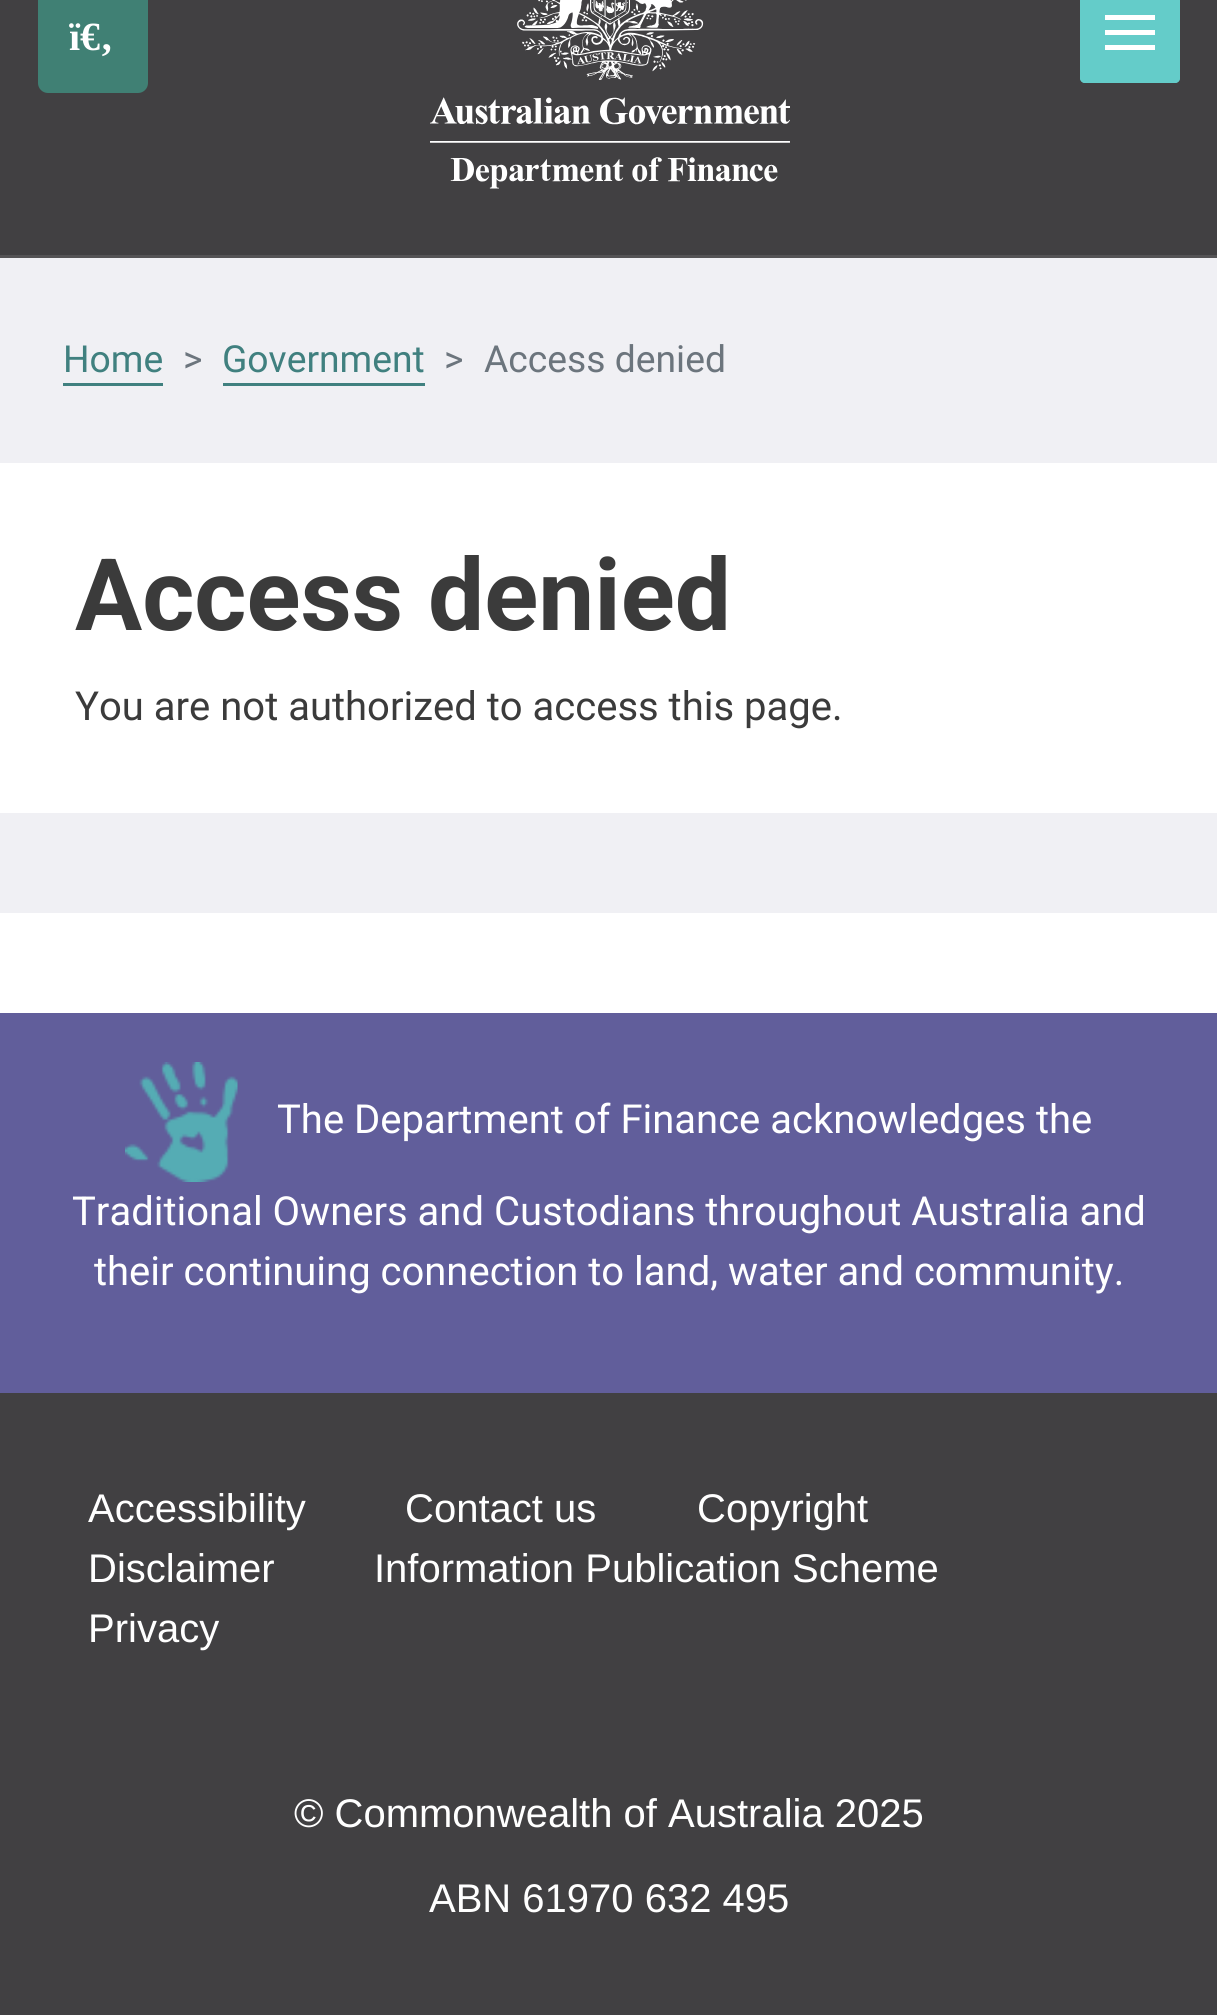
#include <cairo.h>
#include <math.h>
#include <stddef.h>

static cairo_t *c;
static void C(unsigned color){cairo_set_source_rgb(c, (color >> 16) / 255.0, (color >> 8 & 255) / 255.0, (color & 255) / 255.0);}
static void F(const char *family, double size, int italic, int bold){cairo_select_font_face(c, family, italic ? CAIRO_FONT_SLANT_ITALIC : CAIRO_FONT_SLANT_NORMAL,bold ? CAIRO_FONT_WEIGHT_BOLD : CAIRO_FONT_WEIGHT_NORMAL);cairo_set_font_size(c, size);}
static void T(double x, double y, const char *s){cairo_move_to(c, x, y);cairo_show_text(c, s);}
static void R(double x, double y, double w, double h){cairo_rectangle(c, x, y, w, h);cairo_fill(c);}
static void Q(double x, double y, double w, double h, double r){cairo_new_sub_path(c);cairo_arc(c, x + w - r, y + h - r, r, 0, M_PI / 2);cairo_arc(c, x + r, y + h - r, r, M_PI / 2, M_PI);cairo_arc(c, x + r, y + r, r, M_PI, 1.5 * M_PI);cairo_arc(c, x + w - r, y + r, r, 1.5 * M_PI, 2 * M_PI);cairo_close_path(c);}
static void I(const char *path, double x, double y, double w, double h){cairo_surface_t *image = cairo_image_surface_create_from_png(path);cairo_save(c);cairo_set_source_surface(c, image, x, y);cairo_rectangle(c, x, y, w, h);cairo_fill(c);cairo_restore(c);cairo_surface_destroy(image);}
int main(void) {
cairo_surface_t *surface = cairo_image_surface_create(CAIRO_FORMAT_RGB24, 1217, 2015);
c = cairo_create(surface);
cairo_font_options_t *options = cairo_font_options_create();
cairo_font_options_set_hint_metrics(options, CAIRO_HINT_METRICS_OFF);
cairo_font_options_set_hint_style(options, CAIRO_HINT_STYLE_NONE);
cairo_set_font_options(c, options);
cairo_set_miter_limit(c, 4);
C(0xf0f0f4);
cairo_paint(c);
C(0x414042);
R(0,0,1217,255);
C(0x545355);
R(0,255,1217,3);
C(0x408074);
Q(40.5,-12.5,105,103,7.5);
cairo_fill_preserve(c);
cairo_set_line_width(c,5);
cairo_stroke(c);
F("Liberation Serif",40,0,1);
C(0xffffff);
T(69,50,"ï€‚");
C(0x64ccc9);
Q(1080,-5,100,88,5);
cairo_fill(c);
C(0xffffff);
cairo_new_path(c);
cairo_move_to(c,1105,15);
cairo_line_to(c,1105,20);
cairo_line_to(c,1155,20);
cairo_line_to(c,1155,15);
cairo_close_path(c);
cairo_move_to(c,1105,30);
cairo_line_to(c,1105,35);
cairo_line_to(c,1155,35);
cairo_line_to(c,1155,30);
cairo_close_path(c);
cairo_move_to(c,1105,45);
cairo_line_to(c,1105,50);
cairo_line_to(c,1155,50);
cairo_line_to(c,1155,45);
cairo_close_path(c);
cairo_fill(c);
Q(1081.5,-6.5,97,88,3.5);
C(0x64ccc9);
cairo_set_line_width(c,3);
cairo_stroke(c);
I("1.png",430,0,360,189);
F("Roboto",37.25,0,0);
C(0x40807f);
T(63,372,"Home");
R(63,383,100,3);
C(0x6c757d);
T(183,372,">");
C(0x40807f);
T(222,372,"Government");
R(223,383,202,3);
C(0x6c757d);
T(444,372,">");
T(484,372,"Access denied");
C(0xffffff);
R(0,463,1217,350);
F("Roboto",100,0,1);
C(0x3b3b3b);
T(75,630,"Access denied");
F("Roboto",40,0,0);
T(75,720,"You are not authorized to access this page.");
C(0xffffff);
R(0,913,1217,100);
C(0x615e9b);
R(0,1013,1217,380);
I("2.png",125,1062,113,120);
C(0xffffff);
T(277,1133,"The Department of Finance acknowledges the");
T(72,1225,"Traditional Owners and Custodians throughout Australia and");
T(94,1285,"their continuing connection to land, water and community.");
C(0x414042);
R(0,1393,1217,622);
F("Liberation Sans",40,0,0);
C(0xffffff);
T(88,1522,"Accessibility");
T(405,1522,"Contact us");
T(697,1522,"Copyright");
T(88,1582,"Disclaimer");
T(374,1582,"Information Publication Scheme");
T(88,1642,"Privacy");
T(294,1827,"© Commonwealth of Australia 2025");
T(429,1912,"ABN 61970 632 495");
cairo_surface_write_to_png(surface, "o.png");
cairo_font_options_destroy(options);
cairo_destroy(c);
cairo_surface_destroy(surface);
return 0;
}
